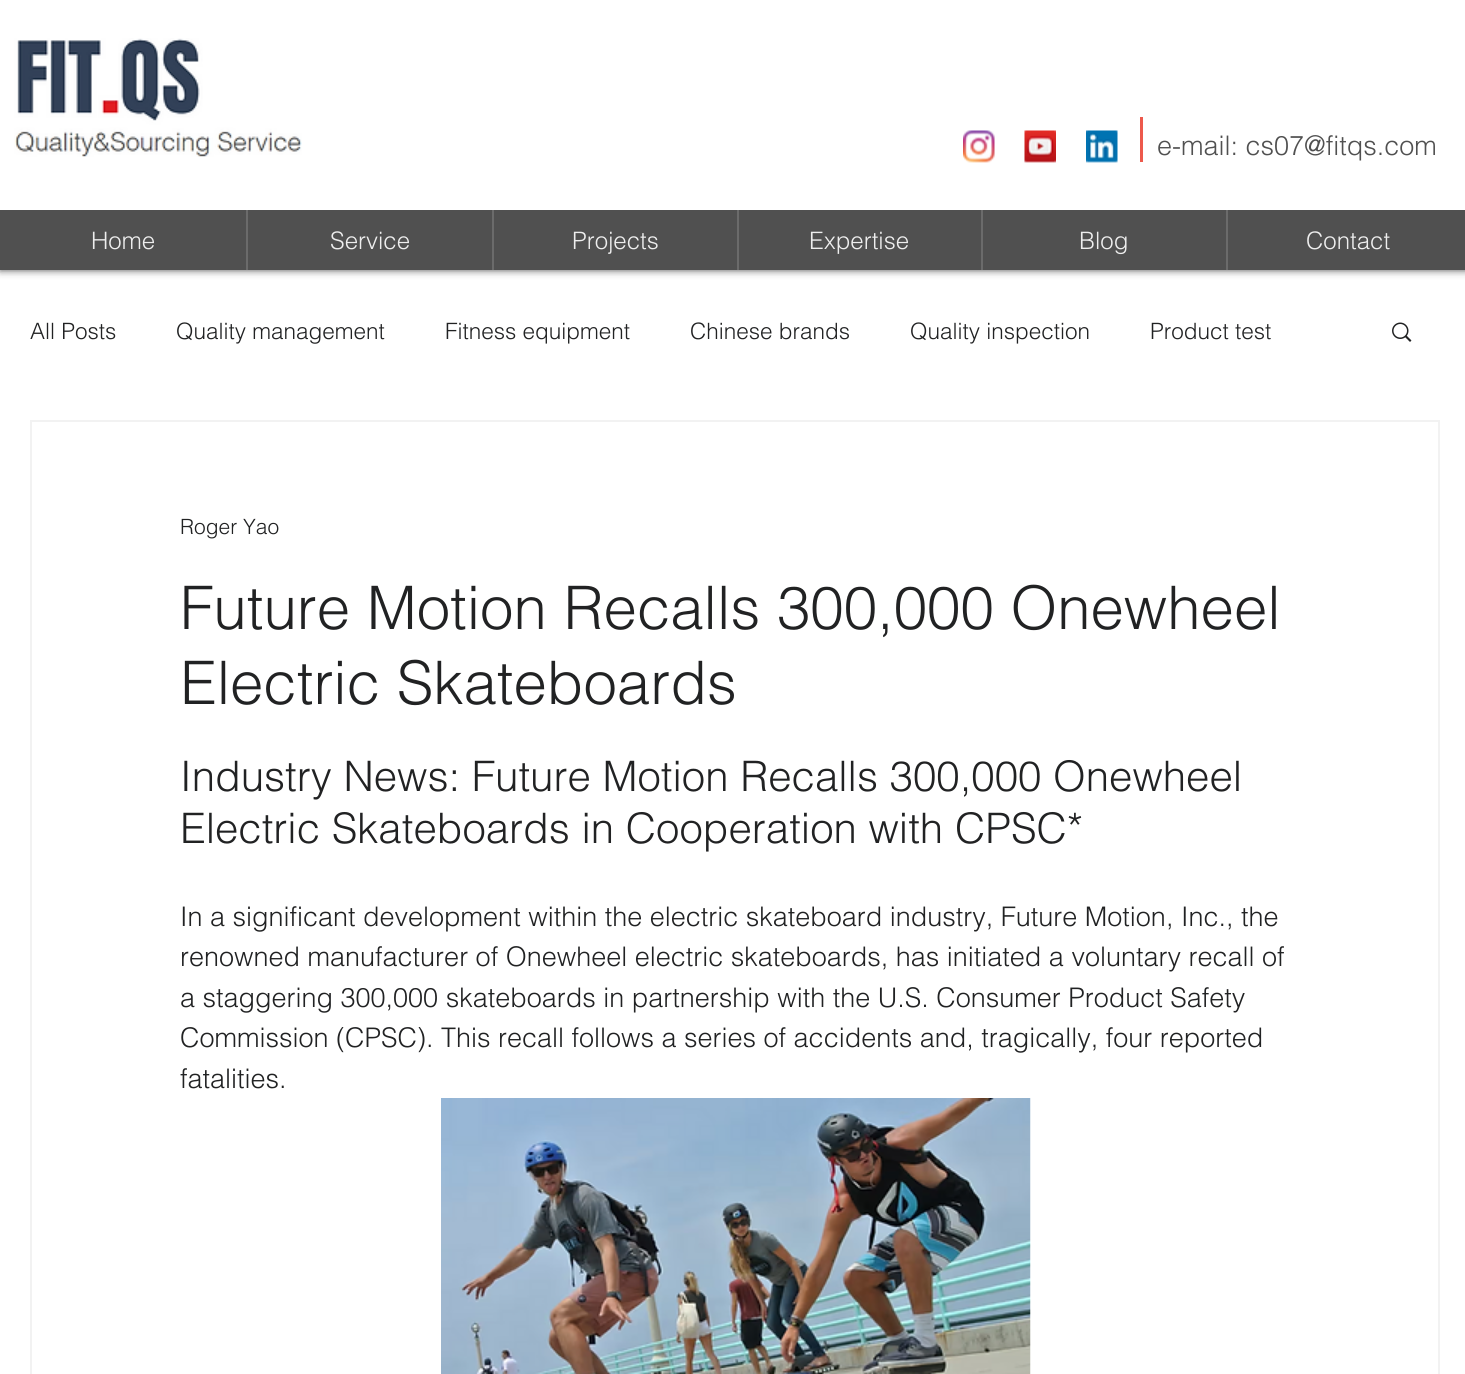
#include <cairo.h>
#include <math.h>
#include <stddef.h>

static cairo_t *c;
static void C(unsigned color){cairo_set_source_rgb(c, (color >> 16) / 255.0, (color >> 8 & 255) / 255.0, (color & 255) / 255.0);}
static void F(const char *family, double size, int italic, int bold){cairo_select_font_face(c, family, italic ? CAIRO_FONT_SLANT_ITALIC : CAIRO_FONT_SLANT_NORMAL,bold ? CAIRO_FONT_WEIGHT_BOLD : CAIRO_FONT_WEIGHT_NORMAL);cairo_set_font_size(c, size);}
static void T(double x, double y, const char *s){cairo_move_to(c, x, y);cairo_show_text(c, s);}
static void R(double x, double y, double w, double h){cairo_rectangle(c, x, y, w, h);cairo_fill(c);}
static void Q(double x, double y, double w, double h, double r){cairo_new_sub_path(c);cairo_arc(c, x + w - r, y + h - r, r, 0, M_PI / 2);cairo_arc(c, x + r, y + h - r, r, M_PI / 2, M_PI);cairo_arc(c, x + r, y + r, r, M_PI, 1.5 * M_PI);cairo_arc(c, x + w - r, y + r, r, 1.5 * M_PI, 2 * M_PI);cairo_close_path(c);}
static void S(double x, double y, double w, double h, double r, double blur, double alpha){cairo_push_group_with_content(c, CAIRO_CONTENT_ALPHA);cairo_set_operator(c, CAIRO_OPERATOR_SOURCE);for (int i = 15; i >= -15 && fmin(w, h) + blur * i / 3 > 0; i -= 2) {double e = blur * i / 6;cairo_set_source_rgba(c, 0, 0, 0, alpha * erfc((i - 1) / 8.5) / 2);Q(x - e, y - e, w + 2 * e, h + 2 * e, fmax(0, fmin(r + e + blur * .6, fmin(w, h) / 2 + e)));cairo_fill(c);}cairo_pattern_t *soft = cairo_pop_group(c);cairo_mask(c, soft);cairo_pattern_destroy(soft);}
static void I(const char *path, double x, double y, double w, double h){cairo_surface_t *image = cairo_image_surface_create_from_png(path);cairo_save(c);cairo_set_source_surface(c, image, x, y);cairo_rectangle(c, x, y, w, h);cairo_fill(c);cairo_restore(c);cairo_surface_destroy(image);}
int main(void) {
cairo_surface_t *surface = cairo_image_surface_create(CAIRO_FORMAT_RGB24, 1465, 1374);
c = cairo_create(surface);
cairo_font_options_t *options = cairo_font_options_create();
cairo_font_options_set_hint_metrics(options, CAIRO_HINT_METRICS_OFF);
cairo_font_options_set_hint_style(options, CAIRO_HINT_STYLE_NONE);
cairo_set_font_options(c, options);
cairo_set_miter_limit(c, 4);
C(0xffffff);
cairo_paint(c);
C(0x000000);
S(0,0,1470,270,0,4,.7);
C(0xffffff);
R(0,0,1465,210);
I("1.png",14,38,288,119);
I("2.png",963,130,32,33);
I("3.png",1024,130,32,33);
I("4.png",1086,130,32,33);
C(0xed594c);
R(1140,117,3,45);
F("helvetica Light",27,0,0);
C(0x505050);
T(1157,155,"e-mail: cs07@fitqs.com");
R(0,210,1465,60);
F("helvetica Light",24,0,0);
C(0xeeeeee);
T(91,249,"Home");
C(0x6b6b6b);
R(246,210,2,60);
C(0xeeeeee);
T(330,249,"Service");
C(0x6b6b6b);
R(492,210,2,60);
C(0xeeeeee);
T(572,249,"Projects");
C(0x6b6b6b);
R(737,210,2,60);
C(0xeeeeee);
T(809,249,"Expertise");
C(0x6b6b6b);
R(981,210,2,60);
C(0xeeeeee);
T(1079,249,"Blog");
C(0x6b6b6b);
R(1226,210,2,60);
C(0xeeeeee);
T(1306,249,"Contact");
F("helvetica Light",22.5,0,0);
C(0x212223);
T(30,339,"All Posts");
T(176,339,"Quality management");
T(445,339,"Fitness equipment");
T(690,339,"Chinese brands");
T(910,339,"Quality inspection");
T(1150,339,"Product test");
I("5.png",1392,322,20,20);
cairo_rectangle(c,31,421,1408,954);
C(0xf2f2f2);
cairo_stroke(c);
F("helvetica Light",21,0,0);
C(0x212223);
T(180,534,"Roger Yao");
F("helvetica Light",60,0,0);
T(180,629,"Future Motion Recalls 300,000 Onewheel");
T(180,704,"Electric Skateboards");
F("helvetica Light",42,0,0);
T(180,791,"Industry News: Future Motion Recalls 300,000 Onewheel");
T(180,843,"Electric Skateboards in Cooperation with CPSC*");
F("helvetica Light",27,0,0);
T(180,926,"In a significant development within the electric skateboard industry, Future Motion, Inc., the");
T(180,966,"renowned manufacturer of Onewheel electric skateboards, has initiated a voluntary recall of");
T(180,1007,"a staggering 300,000 skateboards in partnership with the U.S. Consumer Product Safety");
T(180,1047,"Commission (CPSC). This recall follows a series of accidents and, tragically, four reported");
T(180,1088,"fatalities.");
I("6.png",441,1098,590,276);
cairo_surface_write_to_png(surface, "o.png");
cairo_font_options_destroy(options);
cairo_destroy(c);
cairo_surface_destroy(surface);
return 0;
}
